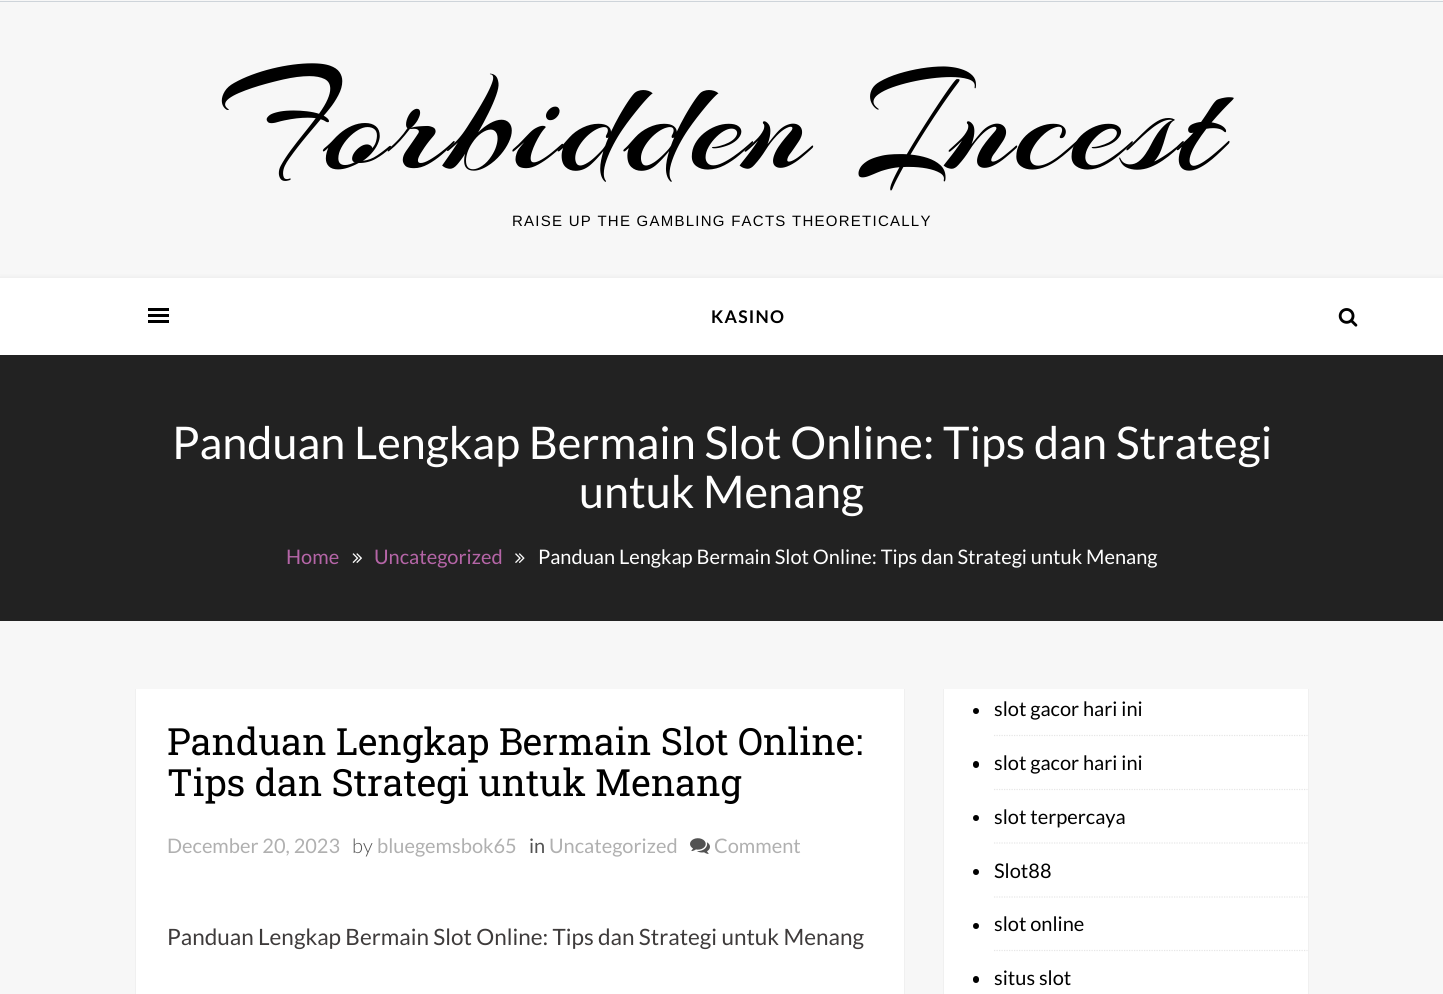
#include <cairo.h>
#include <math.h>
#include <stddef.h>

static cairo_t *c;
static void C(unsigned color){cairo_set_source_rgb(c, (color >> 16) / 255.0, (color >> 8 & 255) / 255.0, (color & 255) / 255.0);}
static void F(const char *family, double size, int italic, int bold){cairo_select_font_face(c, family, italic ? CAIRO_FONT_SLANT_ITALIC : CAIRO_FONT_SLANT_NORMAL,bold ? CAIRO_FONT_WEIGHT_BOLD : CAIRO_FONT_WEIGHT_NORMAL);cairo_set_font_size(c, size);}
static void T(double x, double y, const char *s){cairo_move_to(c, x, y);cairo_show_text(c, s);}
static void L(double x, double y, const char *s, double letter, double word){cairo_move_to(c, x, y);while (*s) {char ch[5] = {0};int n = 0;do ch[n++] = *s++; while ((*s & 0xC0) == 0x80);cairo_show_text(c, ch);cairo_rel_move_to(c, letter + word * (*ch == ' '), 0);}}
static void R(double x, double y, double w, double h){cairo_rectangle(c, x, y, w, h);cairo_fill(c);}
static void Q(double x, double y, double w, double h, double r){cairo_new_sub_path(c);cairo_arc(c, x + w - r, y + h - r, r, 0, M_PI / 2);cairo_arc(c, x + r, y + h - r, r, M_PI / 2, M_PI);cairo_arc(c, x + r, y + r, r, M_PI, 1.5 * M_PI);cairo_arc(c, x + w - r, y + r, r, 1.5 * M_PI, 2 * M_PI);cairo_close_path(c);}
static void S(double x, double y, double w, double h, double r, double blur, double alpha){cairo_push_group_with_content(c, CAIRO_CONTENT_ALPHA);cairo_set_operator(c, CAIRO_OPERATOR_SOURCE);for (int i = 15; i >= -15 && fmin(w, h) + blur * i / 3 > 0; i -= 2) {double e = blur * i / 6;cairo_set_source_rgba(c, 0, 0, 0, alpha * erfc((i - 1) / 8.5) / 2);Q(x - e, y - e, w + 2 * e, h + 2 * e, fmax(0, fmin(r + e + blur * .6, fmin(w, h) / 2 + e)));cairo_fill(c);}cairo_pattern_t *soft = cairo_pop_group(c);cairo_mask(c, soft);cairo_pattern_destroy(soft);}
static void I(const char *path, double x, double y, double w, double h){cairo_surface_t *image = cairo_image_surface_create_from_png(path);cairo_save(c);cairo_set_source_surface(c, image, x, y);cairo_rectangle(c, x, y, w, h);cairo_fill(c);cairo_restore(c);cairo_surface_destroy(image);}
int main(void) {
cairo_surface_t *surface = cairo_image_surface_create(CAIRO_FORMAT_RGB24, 1443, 994);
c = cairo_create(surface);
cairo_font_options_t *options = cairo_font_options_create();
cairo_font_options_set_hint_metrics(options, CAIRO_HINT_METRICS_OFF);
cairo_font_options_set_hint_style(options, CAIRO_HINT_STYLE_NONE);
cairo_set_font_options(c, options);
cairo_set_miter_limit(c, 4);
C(0xf7f7f7);
cairo_paint(c);
C(0xced4da);
R(0,1,1443,1);
F("Arizonia",156.25,0,0);
C(0x000000);
L(219,168,"Forbidden Incest",2.5,0);
F("Liberation Sans",15,0,0);
L(512,226,"RAISE UP THE GAMBLING FACTS THEORETICALLY",1.25,0);
C(0x000000);
S(0,279,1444,77,0,3,.1);
C(0xffffff);
R(0,278,1443,77);
C(0x000000);
R(148,308,21,3);
R(148,314,21,3);
R(148,320,21,3);
F("Lato",17.5,0,1);
L(711,323,"KASINO",1.25,0);
I("1.png",1338,308,20,19);
C(0x222222);
R(0,355,1443,266);
F("Lato",45,0,0);
C(0xffffff);
T(172,459,"Panduan Lengkap Bermain Slot Online: Tips dan Strategi");
T(579,508,"untuk Menang");
F("Lato",20,0,0);
C(0xb565a7);
T(286,564,"Home");
I("2.png",352,553,10,10);
T(374,564,"Uncategorized");
I("3.png",515,553,10,10);
C(0xffffff);
T(538,564,"Panduan Lengkap Bermain Slot Online: Tips dan Strategi untuk Menang");
R(136,689,768,305);
C(0xf0f0f0);
R(904,689,1,305);
R(135,689,1,305);
F("Roboto Slab",37.5,0,0);
C(0x000000);
T(167,755,"Panduan Lengkap Bermain Slot Online:");
T(167,796,"Tips dan Strategi untuk Menang");
F("Lato",20,0,0);
C(0xb0b0b0);
T(167,853,"December 20, 2023");
F("Lato Light",20,0,0);
C(0x525252);
T(352,853,"by");
F("Lato",20,0,0);
C(0xb0b0b0);
T(377,853,"bluegemsbok65");
C(0x525252);
T(529,853,"in");
C(0xb0b0b0);
T(549,853,"Uncategorized");
I("4.png",690,838,20,16);
T(714,853,"Comment");
F("Lato",22.5,0,0);
C(0x3e3b3b);
T(167,945,"Panduan Lengkap Bermain Slot Online: Tips dan Strategi untuk Menang");
C(0xffffff);
R(944,689,364,305);
C(0xf0f0f0);
R(1308,689,1,305);
R(943,689,1,305);
cairo_new_path(c);
cairo_move_to(c,994,735.5);
cairo_line_to(c,1307.5,735.5);
C(0xe6e6e6);
cairo_set_line_width(c,1.2);
cairo_set_dash(c,(double[]){1.25,1.25},2,0);
cairo_stroke(c);
C(0x000000);
cairo_arc(c,976,711,3,0,2 * M_PI);
cairo_fill(c);
F("Lato",20,0,0);
T(994,716,"slot gacor hari ini");
cairo_new_path(c);
cairo_move_to(c,994,789.5);
cairo_line_to(c,1307.5,789.5);
C(0xe6e6e6);
cairo_stroke(c);
C(0x000000);
Q(973,761,6,7,3);
cairo_fill(c);
T(994,770,"slot gacor hari ini");
cairo_new_path(c);
cairo_move_to(c,994,843);
cairo_line_to(c,1307.5,843);
C(0xe6e6e6);
cairo_stroke(c);
C(0x000000);
cairo_arc(c,976,818,3,0,2 * M_PI);
cairo_fill(c);
T(994,824,"slot terpercaya");
cairo_new_path(c);
cairo_move_to(c,994,897);
cairo_line_to(c,1307.5,897);
C(0xe6e6e6);
cairo_stroke(c);
C(0x000000);
cairo_arc(c,976,872,3,0,2 * M_PI);
cairo_fill(c);
T(994,878,"Slot88");
cairo_new_path(c);
cairo_move_to(c,994,950.5);
cairo_line_to(c,1307.5,950.5);
C(0xe6e6e6);
cairo_stroke(c);
C(0x000000);
cairo_arc(c,976,926,3,0,2 * M_PI);
cairo_fill(c);
T(994,931,"slot online");
Q(973,976,6,7,3);
cairo_fill(c);
T(994,985,"situs slot");
cairo_surface_write_to_png(surface, "o.png");
cairo_font_options_destroy(options);
cairo_destroy(c);
cairo_surface_destroy(surface);
return 0;
}
